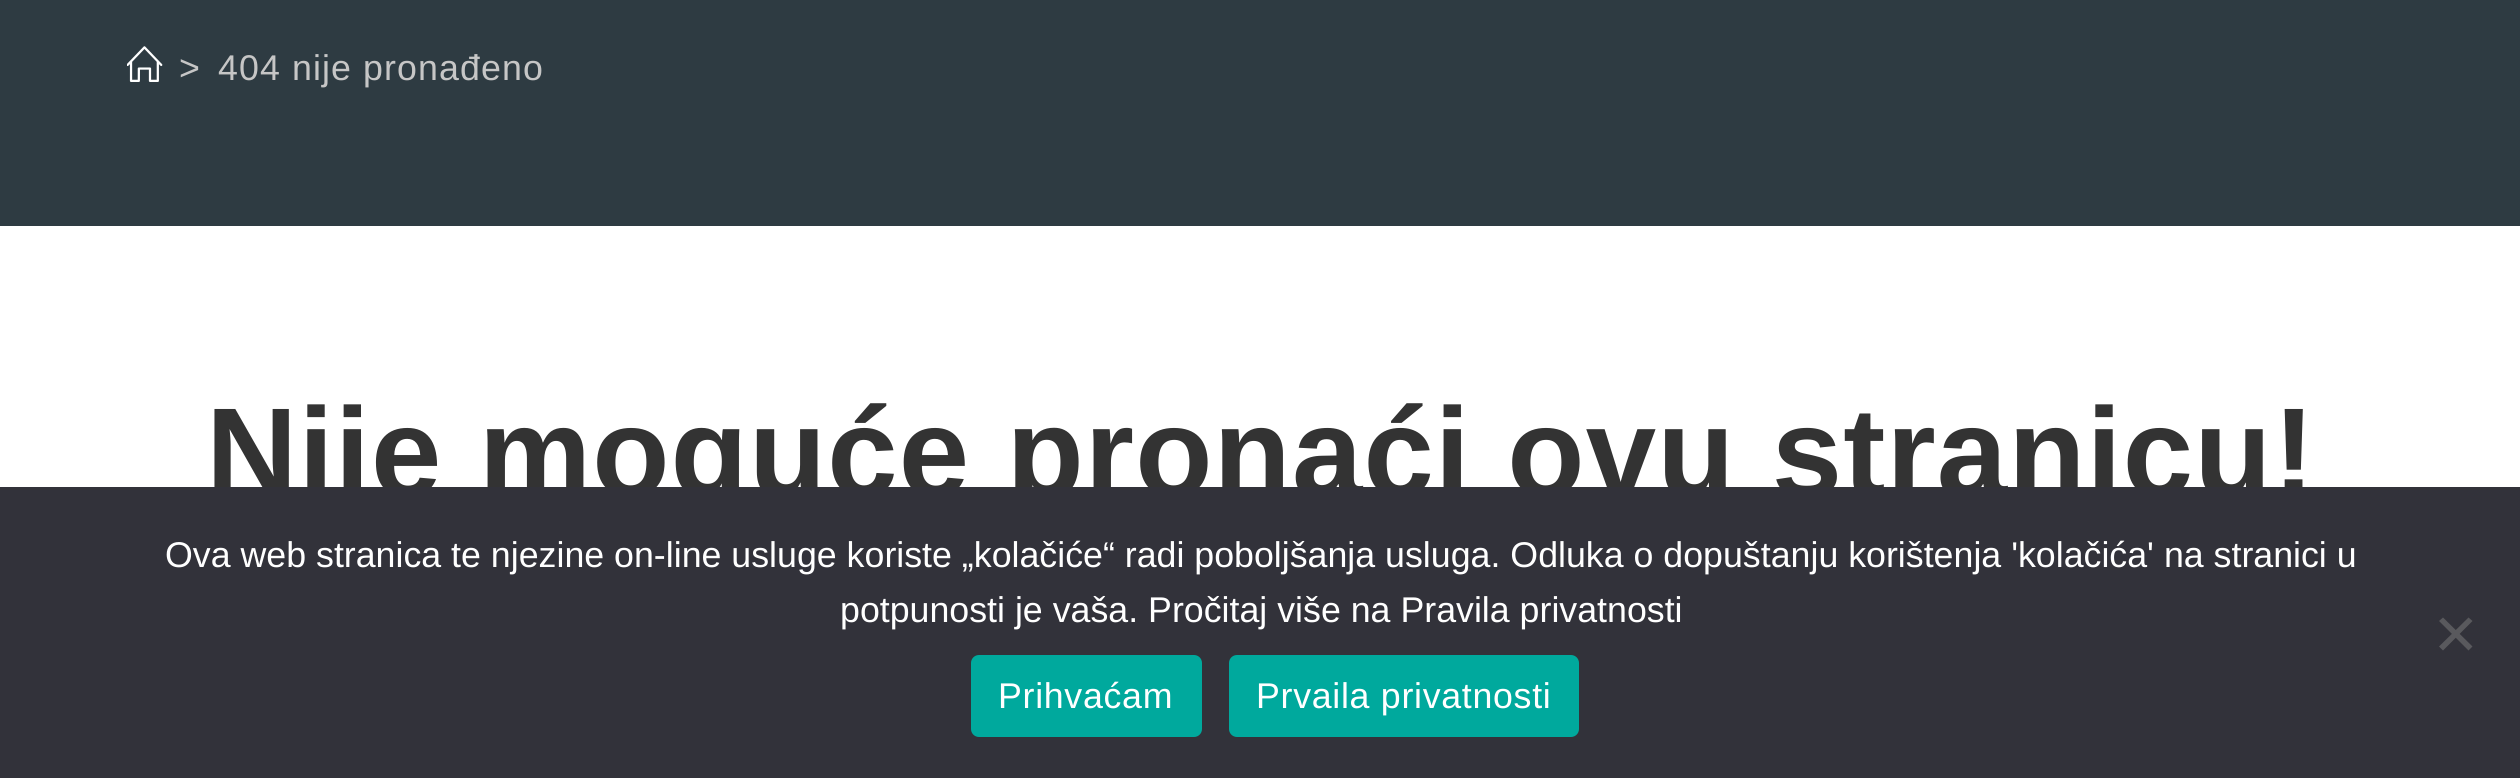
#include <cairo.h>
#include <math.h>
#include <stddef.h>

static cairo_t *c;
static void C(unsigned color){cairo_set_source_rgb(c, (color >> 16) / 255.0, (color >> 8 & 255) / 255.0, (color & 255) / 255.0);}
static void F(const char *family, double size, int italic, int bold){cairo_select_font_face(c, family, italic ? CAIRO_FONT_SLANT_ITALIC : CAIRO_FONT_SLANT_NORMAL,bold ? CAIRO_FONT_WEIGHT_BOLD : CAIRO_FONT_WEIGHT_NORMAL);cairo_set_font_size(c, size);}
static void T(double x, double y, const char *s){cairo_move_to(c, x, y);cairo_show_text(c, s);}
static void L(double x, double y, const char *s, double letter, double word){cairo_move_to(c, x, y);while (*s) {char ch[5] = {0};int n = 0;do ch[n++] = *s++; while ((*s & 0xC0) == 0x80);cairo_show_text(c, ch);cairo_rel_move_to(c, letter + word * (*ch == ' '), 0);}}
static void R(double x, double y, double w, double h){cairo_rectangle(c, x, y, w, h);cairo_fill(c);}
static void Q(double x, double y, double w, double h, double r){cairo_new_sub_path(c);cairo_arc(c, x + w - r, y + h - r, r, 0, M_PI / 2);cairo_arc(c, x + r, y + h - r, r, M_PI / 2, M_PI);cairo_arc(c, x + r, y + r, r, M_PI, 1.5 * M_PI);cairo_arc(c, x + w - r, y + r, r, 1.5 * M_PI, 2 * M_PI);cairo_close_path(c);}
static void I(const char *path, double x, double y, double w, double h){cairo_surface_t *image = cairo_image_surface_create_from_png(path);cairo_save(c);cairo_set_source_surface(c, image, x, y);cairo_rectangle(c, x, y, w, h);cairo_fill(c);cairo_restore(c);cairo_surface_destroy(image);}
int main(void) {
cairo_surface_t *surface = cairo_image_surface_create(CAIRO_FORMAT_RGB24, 2520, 778);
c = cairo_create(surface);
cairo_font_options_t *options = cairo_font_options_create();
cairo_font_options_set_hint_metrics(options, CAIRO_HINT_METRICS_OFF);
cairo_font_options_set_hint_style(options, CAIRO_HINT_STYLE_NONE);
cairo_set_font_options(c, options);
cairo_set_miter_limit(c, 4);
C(0xffffff);
cairo_paint(c);
C(0x2e3b42);
R(0,0,2520,226);
I("1.png",127,46,36,36);
F("Liberation Sans",35.75,0,0);
C(0xc6c6c6);
L(179,80,">",1.1,0);
L(218,80,"404 nije pronađeno",1.1,0);
F("Liberation Sans",126.5,0,1);
C(0x333333);
L(206,496,"Nije moguće pronaći ovu stranicu!",1.1,0);
C(0x32323a);
R(0,487,2520,291);
F("Liberation Sans",35.75,0,0);
C(0xffffff);
T(165,567,"Ova web stranica te njezine on-line usluge koriste „kolačiće“ radi poboljšanja usluga. Odluka o dopuštanju korištenja 'kolačića' na stranici u");
T(840,622,"potpunosti je vaša. Pročitaj više na Pravila privatnosti");
C(0x59595d);
cairo_new_path(c);
cairo_move_to(c,2468.5,617.5);
cairo_line_to(c,2472.5,621);
cairo_line_to(c,2443,650.5);
cairo_line_to(c,2439,646.5);
cairo_close_path(c);
cairo_fill(c);
cairo_new_path(c);
cairo_move_to(c,2439,621);
cairo_line_to(c,2443,617.5);
cairo_line_to(c,2472.5,646.5);
cairo_line_to(c,2468.5,650.5);
cairo_close_path(c);
cairo_fill(c);
C(0x00a99d);
Q(971,655,231,82,8);
cairo_fill(c);
C(0xffffff);
L(998,708,"Prihvaćam",.7,0);
C(0x00a99d);
Q(1229,655,350,82,8);
cairo_fill(c);
C(0xffffff);
L(1256,708,"Prvaila privatnosti",.7,0);
cairo_surface_write_to_png(surface, "o.png");
cairo_font_options_destroy(options);
cairo_destroy(c);
cairo_surface_destroy(surface);
return 0;
}
